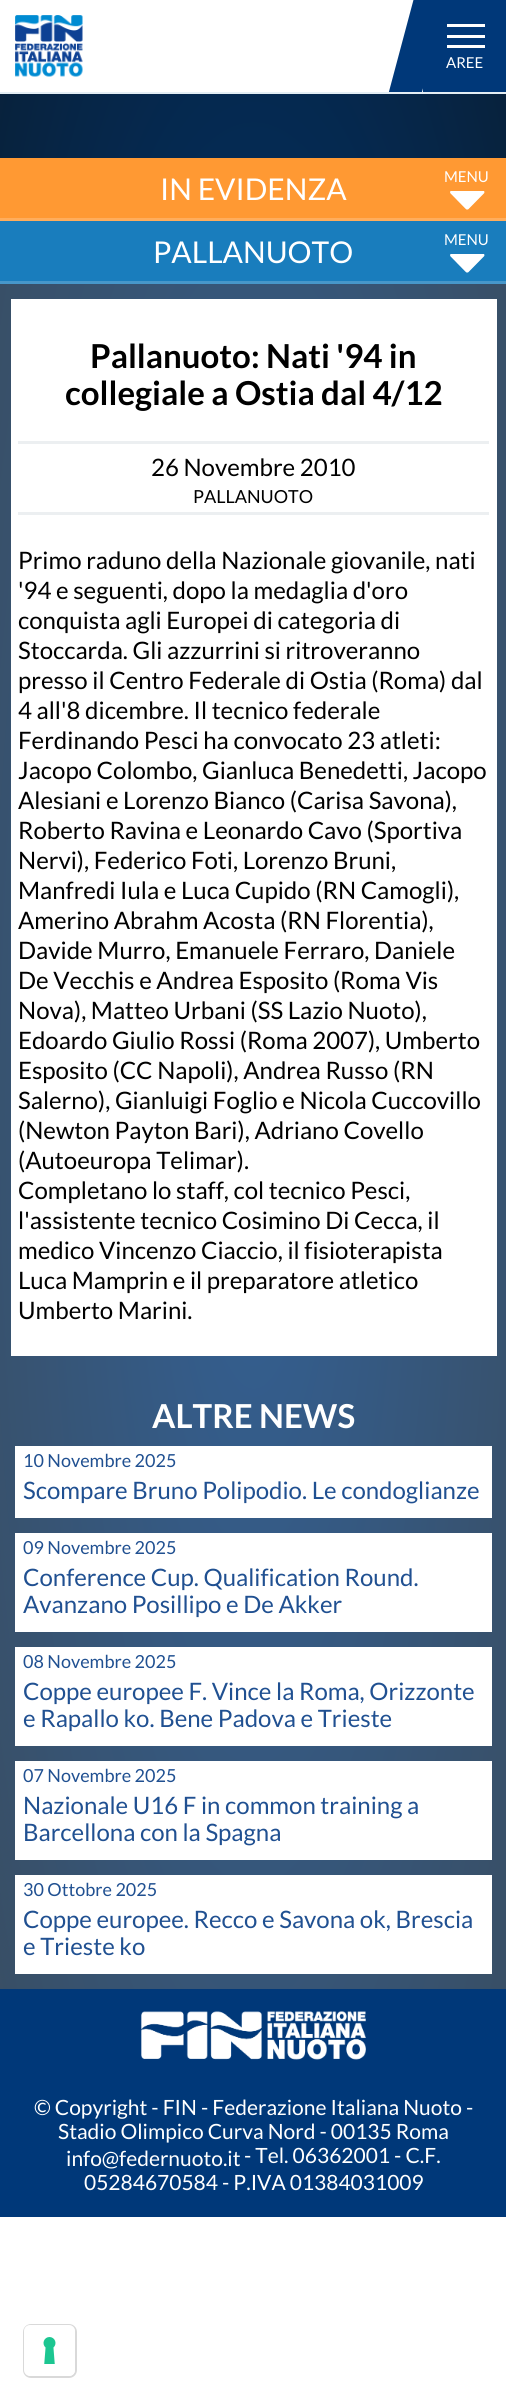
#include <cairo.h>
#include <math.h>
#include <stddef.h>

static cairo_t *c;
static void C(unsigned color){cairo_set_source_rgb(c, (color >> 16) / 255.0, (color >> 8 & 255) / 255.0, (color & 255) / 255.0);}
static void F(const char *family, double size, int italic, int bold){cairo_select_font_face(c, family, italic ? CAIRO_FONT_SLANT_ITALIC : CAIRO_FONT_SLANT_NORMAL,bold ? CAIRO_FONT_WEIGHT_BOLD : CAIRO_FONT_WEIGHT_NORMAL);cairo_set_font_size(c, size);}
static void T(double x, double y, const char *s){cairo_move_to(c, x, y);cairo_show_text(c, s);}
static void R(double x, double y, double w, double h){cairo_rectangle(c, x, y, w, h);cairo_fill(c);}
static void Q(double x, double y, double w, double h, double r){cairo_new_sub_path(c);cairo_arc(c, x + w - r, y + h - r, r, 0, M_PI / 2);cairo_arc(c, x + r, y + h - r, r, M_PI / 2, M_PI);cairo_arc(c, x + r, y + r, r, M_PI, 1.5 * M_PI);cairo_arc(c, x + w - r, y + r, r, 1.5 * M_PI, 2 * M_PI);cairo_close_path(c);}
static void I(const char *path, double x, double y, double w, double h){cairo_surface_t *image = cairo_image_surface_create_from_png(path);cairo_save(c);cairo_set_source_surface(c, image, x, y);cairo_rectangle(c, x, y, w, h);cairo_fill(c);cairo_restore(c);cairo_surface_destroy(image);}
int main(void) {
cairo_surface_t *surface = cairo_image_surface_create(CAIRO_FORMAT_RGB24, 506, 2400);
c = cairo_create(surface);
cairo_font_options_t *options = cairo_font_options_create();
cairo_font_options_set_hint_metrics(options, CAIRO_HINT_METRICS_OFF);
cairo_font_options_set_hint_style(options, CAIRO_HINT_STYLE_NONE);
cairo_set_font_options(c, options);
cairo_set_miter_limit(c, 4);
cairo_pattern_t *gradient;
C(0xffffff);
cairo_paint(c);
gradient = cairo_pattern_create_radial(0,0,0,0,0,1);
cairo_pattern_set_matrix(gradient, &(cairo_matrix_t){1.0 / 359, 0, 0, 1.0 / 1568, -1.0 * 254 / 359, -1.0 * 1109 / 1568});
cairo_pattern_add_color_stop_rgba(gradient,0,0,0.22,0.475,1);
cairo_pattern_add_color_stop_rgba(gradient,1,0.031,0.129,0.227,1);
cairo_set_source(c,gradient);
cairo_pattern_destroy(gradient);
R(0,94,506,64);
gradient = cairo_pattern_create_radial(0,0,0,0,0,1);
cairo_pattern_set_matrix(gradient, &(cairo_matrix_t){1.0 / 359, 0, 0, 1.0 / 1568, -1.0 * 254 / 359, -1.0 * 1109 / 1568});
cairo_pattern_add_color_stop_rgba(gradient,0,0.2,0.376,0.58,1);
cairo_pattern_add_color_stop_rgba(gradient,1,0.224,0.302,0.38,1);
cairo_set_source(c,gradient);
cairo_pattern_destroy(gradient);
R(0,284,506,1705);
C(0xe4eef4);
R(0,92,506,2);
I("1.png",15,15,68,62);
C(0x003879);
R(423,0,83,92);
cairo_save(c);
cairo_rectangle(c,0,0,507,92);
cairo_clip(c);
cairo_new_path(c);
cairo_move_to(c,418,-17);
cairo_line_to(c,449,-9);
cairo_line_to(c,418,107);
cairo_line_to(c,387,99);
cairo_close_path(c);
cairo_fill(c);
cairo_restore(c);
C(0xffffff);
R(447,24,38,3);
R(447,35,38,3);
R(447,45,38,3);
F("Lato",15,0,0);
T(446,68,"AREE");
C(0xff9933);
R(0,158,506,60);
C(0xffad5c);
R(0,218,506,3);
F("Lato",30,0,0);
C(0xffffff);
T(160,200,"IN EVIDENZA");
F("Lato",15,0,0);
T(444,182,"MENU");
I("2.png",450,191,35,19);
C(0x197dbd);
R(0,221,506,60);
C(0x4797ca);
R(0,281,506,3);
F("Lato",30,0,0);
C(0xffffff);
T(153,263,"PALLANUOTO");
F("Lato",15,0,0);
T(444,245,"MENU");
I("3.png",450,254,35,19);
R(11,299,486,1057);
F("Lato",33,0,1);
C(0x000000);
T(90,368,"Pallanuoto: Nati '94 in");
T(65,405,"collegiale a Ostia dal 4/12");
C(0xeceff1);
R(18,441,471,3);
R(18,512,471,3);
F("Lato",24,0,0);
C(0x000000);
T(151,476,"26 Novembre 2010");
F("Lato",18,0,0);
T(193,503,"PALLANUOTO");
F("Lato",24,0,0);
T(18,569,"Primo raduno della Nazionale giovanile, nati");
T(18,599,"'94 e seguenti, dopo la medaglia d'oro");
T(18,629,"conquista agli Europei di categoria di");
T(18,659,"Stoccarda. Gli azzurrini si ritroveranno");
T(18,689,"presso il Centro Federale di Ostia (Roma) dal");
T(18,719,"4 all'8 dicembre. Il tecnico federale");
T(18,749,"Ferdinando Pesci ha convocato 23 atleti:");
T(18,779,"Jacopo Colombo, Gianluca Benedetti, Jacopo");
T(18,809,"Alesiani e Lorenzo Bianco (Carisa Savona),");
T(18,839,"Roberto Ravina e Leonardo Cavo (Sportiva");
T(18,869,"Nervi), Federico Foti, Lorenzo Bruni,");
T(18,899,"Manfredi Iula e Luca Cupido (RN Camogli),");
T(18,929,"Amerino Abrahm Acosta (RN Florentia),");
T(18,959,"Davide Murro, Emanuele Ferraro, Daniele");
T(18,989,"De Vecchis e Andrea Esposito (Roma Vis");
T(18,1019,"Nova), Matteo Urbani (SS Lazio Nuoto),");
T(18,1049,"Edoardo Giulio Rossi (Roma 2007), Umberto");
T(18,1079,"Esposito (CC Napoli), Andrea Russo (RN");
T(18,1109,"Salerno), Gianluigi Foglio e Nicola Cuccovillo");
T(18,1139,"(Newton Payton Bari), Adriano Covello");
T(18,1169,"(Autoeuropa Telimar).");
T(18,1199,"Completano lo staff, col tecnico Pesci,");
T(18,1229,"l'assistente tecnico Cosimino Di Cecca, il");
T(18,1259,"medico Vincenzo Ciaccio, il fisioterapista");
T(18,1289,"Luca Mamprin e il preparatore atletico");
T(18,1319,"Umberto Marini.");
F("Lato",33,0,1);
C(0xffffff);
T(152,1428,"ALTRE NEWS");
R(15,1446,477,72);
F("Lato",18,0,0);
C(0x205091);
T(23,1467,"10 Novembre 2025");
F("Lato",24,0,0);
T(23,1499,"Scompare Bruno Polipodio. Le condoglianze");
C(0xffffff);
R(15,1533,477,99);
F("Lato",18,0,0);
C(0x205091);
T(23,1554,"09 Novembre 2025");
F("Lato",24,0,0);
T(23,1586,"Conference Cup. Qualification Round.");
T(23,1613,"Avanzano Posillipo e De Akker");
C(0xffffff);
R(15,1647,477,99);
F("Lato",18,0,0);
C(0x205091);
T(23,1668,"08 Novembre 2025");
F("Lato",24,0,0);
T(23,1700,"Coppe europee F. Vince la Roma, Orizzonte");
T(23,1727,"e Rapallo ko. Bene Padova e Trieste");
C(0xffffff);
R(15,1761,477,99);
F("Lato",18,0,0);
C(0x205091);
T(23,1782,"07 Novembre 2025");
F("Lato",24,0,0);
T(23,1814,"Nazionale U16 F in common training a");
T(23,1841,"Barcellona con la Spagna");
C(0xffffff);
R(15,1875,477,99);
F("Lato",18,0,0);
C(0x205091);
T(23,1896,"30 Ottobre 2025");
F("Lato",24,0,0);
T(23,1928,"Coppe europee. Recco e Savona ok, Brescia");
T(23,1955,"e Trieste ko");
C(0x003879);
R(0,1989,506,228);
I("4.png",141,2011,225,49);
F("Lato",21,0,0);
C(0xffffff);
T(34,2115,"© Copyright - FIN - Federazione Italiana Nuoto -");
T(58,2139,"Stadio Olimpico Curva Nord - 00135 Roma");
T(66,2166,"info@federnuoto.it");
T(244,2163,"- Tel. 06362001 - C.F.");
T(84,2190,"05284670584 - P.IVA 01384031009");
Q(24,2325,52,52,7);
C(0xd9d9d9);
cairo_stroke(c);
C(0xffffff);
Q(24,2325,51,51,6);
cairo_fill(c);
I("5.png",43,2337,13,27);
cairo_surface_write_to_png(surface, "o.png");
cairo_font_options_destroy(options);
cairo_destroy(c);
cairo_surface_destroy(surface);
return 0;
}
